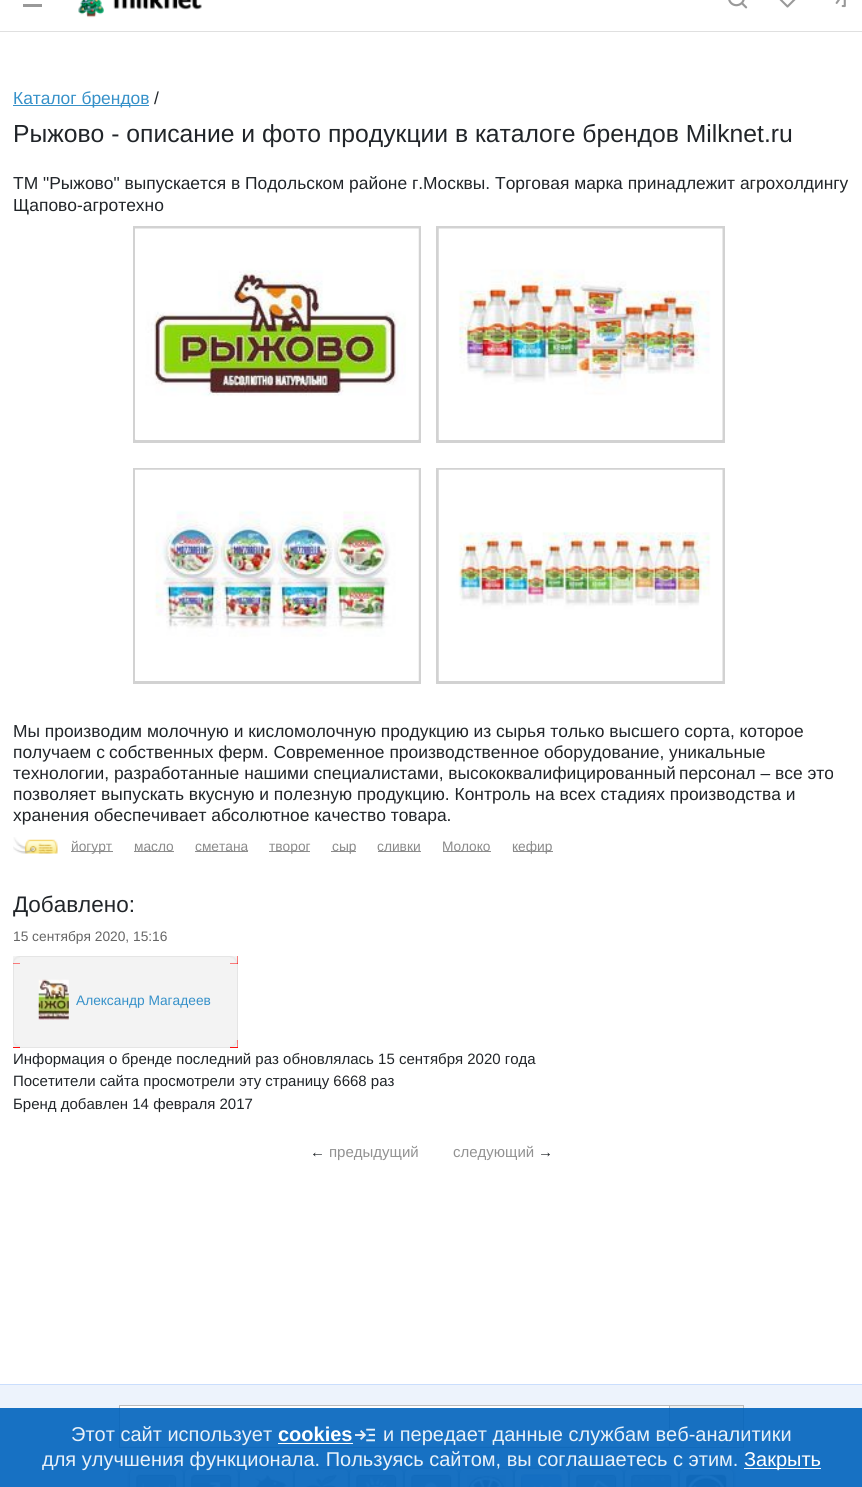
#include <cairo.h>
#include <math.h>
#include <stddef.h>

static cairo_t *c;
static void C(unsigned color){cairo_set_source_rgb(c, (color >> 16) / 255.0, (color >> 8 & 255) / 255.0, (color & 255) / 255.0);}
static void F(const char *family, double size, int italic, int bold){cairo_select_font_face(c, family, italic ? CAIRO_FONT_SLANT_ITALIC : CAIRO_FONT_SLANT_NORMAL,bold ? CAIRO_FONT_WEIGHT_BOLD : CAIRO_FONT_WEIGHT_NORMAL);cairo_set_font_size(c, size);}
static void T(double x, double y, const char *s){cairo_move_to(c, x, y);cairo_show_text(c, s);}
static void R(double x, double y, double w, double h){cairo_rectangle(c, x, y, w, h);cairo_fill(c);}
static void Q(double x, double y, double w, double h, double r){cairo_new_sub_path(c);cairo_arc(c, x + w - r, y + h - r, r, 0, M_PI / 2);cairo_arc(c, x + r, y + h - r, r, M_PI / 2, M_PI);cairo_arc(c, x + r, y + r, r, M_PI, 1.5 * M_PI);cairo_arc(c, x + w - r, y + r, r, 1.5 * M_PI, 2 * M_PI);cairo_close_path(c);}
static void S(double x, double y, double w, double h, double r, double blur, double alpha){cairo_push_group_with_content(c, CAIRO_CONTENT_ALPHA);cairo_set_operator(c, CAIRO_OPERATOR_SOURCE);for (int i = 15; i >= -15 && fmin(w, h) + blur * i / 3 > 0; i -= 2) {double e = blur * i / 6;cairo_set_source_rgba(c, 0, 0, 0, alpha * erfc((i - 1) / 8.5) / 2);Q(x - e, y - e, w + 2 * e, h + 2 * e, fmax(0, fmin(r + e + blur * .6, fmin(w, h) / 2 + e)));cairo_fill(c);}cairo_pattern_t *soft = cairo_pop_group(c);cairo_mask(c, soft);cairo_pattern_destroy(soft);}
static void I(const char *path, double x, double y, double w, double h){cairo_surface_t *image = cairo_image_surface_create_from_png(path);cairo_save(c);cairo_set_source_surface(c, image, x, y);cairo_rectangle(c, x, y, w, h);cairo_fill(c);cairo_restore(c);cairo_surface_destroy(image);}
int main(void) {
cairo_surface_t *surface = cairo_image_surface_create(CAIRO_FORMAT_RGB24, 862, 1487);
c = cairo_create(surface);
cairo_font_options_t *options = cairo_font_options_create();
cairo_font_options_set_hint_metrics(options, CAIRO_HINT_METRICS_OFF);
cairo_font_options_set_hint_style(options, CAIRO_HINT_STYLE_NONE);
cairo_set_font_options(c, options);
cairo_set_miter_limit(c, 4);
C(0xffffff);
cairo_paint(c);
C(0xe0e0e0);
R(0,31,862,1);
C(0x999999);
R(23,4,19,3);
I("1.png",78,0,124,18);
I("2.png",728,0,20,9);
I("3.png",779,0,17,8);
I("4.png",835,0,11,8);
C(0x3691c9);
R(13,105,136,1);
F("Liberation Sans",17.4,0,0);
T(13,104,"Каталог брендов");
C(0x212529);
T(154,104,"/");
F("Liberation Sans",24.7,0,0);
T(13,142,"Рыжово - описание и фото продукции в каталоге брендов Milknet.ru");
F("Liberation Sans",17.4,0,0);
T(13,189,"ТМ \"Рыжово\" выпускается в Подольском районе г.Москвы. Торговая марка принадлежит агрохолдингу");
T(13,211,"Щапово-агротехно");
cairo_rectangle(c,134.5,227.5,285,214);
C(0xd2d2d2);
cairo_set_line_width(c,3);
cairo_stroke(c);
I("5.png",135,228,284,212);
cairo_rectangle(c,437.5,227.5,286,214);
cairo_stroke(c);
I("6.png",438,228,285,212);
cairo_rectangle(c,134.5,469.5,285,213);
cairo_stroke(c);
I("7.png",135,469,284,212);
cairo_rectangle(c,437.5,469.5,286,213);
cairo_stroke(c);
I("8.png",438,469,285,212);
C(0x212529);
T(13,737,"Мы производим молочную и кисломолочную продукцию из сырья только высшего сорта, которое");
T(13,758,"получаем с");
T(109,758,"собственных ферм. Современное производственное оборудование, уникальные");
T(13,779,"технологии, разработанные нашими специалистами, высококвалифицированный");
T(679,779,"персонал – все это");
T(13,800,"позволяет выпускать вкусную и полезную продукцию. Контроль на всех стадиях производства и");
T(13,821,"хранения обеспечивает абсолютное качество товара.");
I("9.png",13,837,45,17);
C(0x8b8b8b);
R(71,851,42,1);
F("Liberation Sans",13.75,0,0);
T(71,851,"йогурт");
R(134,851,40,1);
T(134,851,"масло");
R(195,851,53,1);
T(195,851,"сметана");
R(269,851,41,1);
T(269,851,"творог");
R(331,851,25,1);
T(332,851,"сыр");
R(378,851,43,1);
T(377,851,"сливки");
R(443,851,48,1);
T(442,851,"Молоко");
R(513,851,40,1);
T(512,851,"кефир");
cairo_save(c);
cairo_rectangle(c,13,73,837,1251);
cairo_clip(c);
F("Liberation Sans",22.5,0,0);
C(0x212529);
T(13,912,"Добавлено:");
cairo_restore(c);
C(0x656565);
T(13,941,"15 сентября 2020, 15:16");
C(0xf3f3f3);
cairo_rectangle(c,13.5,956.5,224,91);
cairo_fill_preserve(c);
C(0xe5e5e5);
cairo_set_line_width(c,1);
cairo_stroke(c);
C(0xff0000);
R(13,956,7,8);
I("10.png",13,956,7,8);
R(230,956,8,8);
I("11.png",230,956,8,8);
I("12.png",38,979,31,41);
C(0x3691c9);
T(76,1005,"Александр Магадеев");
C(0xff0000);
R(13,1040,7,8);
I("13.png",13,1040,7,8);
R(230,1040,8,8);
I("14.png",230,1040,8,8);
F("Liberation Sans",15,0,0);
C(0x212529);
T(13,1064,"Информация о бренде последний раз обновлялась 15 сентября 2020 года");
T(13,1086,"Посетители сайта просмотрели эту страницу 6668 раз");
T(13,1109,"Бренд добавлен 14 февраля 2017");
T(310,1157,"←");
C(0x929292);
T(329,1157,"предыдущий");
T(453,1157,"следующий");
C(0x212529);
T(538,1157,"→");
C(0xedf3fc);
R(0,1385,862,102);
C(0xcadefd);
R(0,1384,862,1);
cairo_rectangle(c,119.5,1405.5,624,42);
C(0xbbbbbb);
cairo_stroke(c);
C(0xffffff);
R(120,1406,549,40);
C(0xefefef);
R(670,1406,73,40);
C(0xbbbbbb);
R(669,1406,1,40);
C(0x000000);
S(130,1469,53,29,5,2,.3);
C(0xf7f7f7);
Q(130,1469,53,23,5);
cairo_fill(c);
I("15.png",136,1474,41,13);
C(0x000000);
S(185,1469,53,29,5,2,.3);
C(0xf7f7f7);
Q(185,1469,53,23,5);
cairo_fill(c);
I("16.png",191,1474,41,13);
C(0x000000);
S(240,1469,53,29,5,2,.3);
C(0xf7f7f7);
Q(240,1469,53,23,5);
cairo_fill(c);
I("17.png",255,1474,32,13);
C(0x000000);
S(295,1469,53,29,5,2,.3);
C(0xf7f7f7);
Q(295,1469,53,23,5);
cairo_fill(c);
I("18.png",306,1474,31,13);
C(0x000000);
S(350,1469,53,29,5,2,.3);
C(0xf7f7f7);
Q(350,1469,53,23,5);
cairo_fill(c);
I("19.png",356,1474,41,13);
C(0x000000);
S(405,1469,53,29,5,2,.3);
C(0xf7f7f7);
Q(405,1469,53,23,5);
cairo_fill(c);
I("20.png",411,1474,41,13);
C(0x000000);
S(460,1469,53,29,5,2,.3);
C(0xf7f7f7);
Q(460,1469,53,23,5);
cairo_fill(c);
I("21.png",466,1475,40,12);
C(0x000000);
S(515,1469,53,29,5,2,.3);
C(0xffffff);
Q(515,1469,53,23,5);
cairo_fill(c);
I("22.png",521,1474,41,13);
I("23.png",521,1474,41,13);
C(0x000000);
S(570,1469,53,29,5,2,.3);
C(0xf7f7f7);
Q(570,1469,53,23,5);
cairo_fill(c);
I("24.png",576,1474,41,13);
C(0x000000);
S(625,1469,53,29,5,2,.3);
C(0xf7f7f7);
Q(625,1469,53,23,5);
cairo_fill(c);
I("25.png",631,1474,41,13);
C(0x000000);
S(680,1469,53,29,5,2,.3);
C(0xf7f7f7);
Q(680,1469,53,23,5);
cairo_fill(c);
I("26.png",686,1474,41,13);
cairo_set_source_rgba(c,0,0.388,0.741,0.9);
R(0,1408,862,79);
F("Liberation Sans",20,0,0);
C(0xe8f1f9);
T(71,1441,"Этот сайт использует");
F("Liberation Sans",20,0,1);
C(0xffffff);
T(278,1441,"cookies");
R(278,1443,75,1);
I("27.png",355,1428,20,14);
F("Liberation Sans",20,0,0);
C(0xe8f1f9);
T(383,1441,"и передает данные службам веб-аналитики");
T(42,1466,"для улучшения функционала. Пользуясь сайтом, вы соглашаетесь с этим.");
C(0xfdfeff);
R(744,1468,77,1);
C(0xffffff);
T(744,1466,"Закрыть");
cairo_surface_write_to_png(surface, "o.png");
cairo_font_options_destroy(options);
cairo_destroy(c);
cairo_surface_destroy(surface);
return 0;
}
